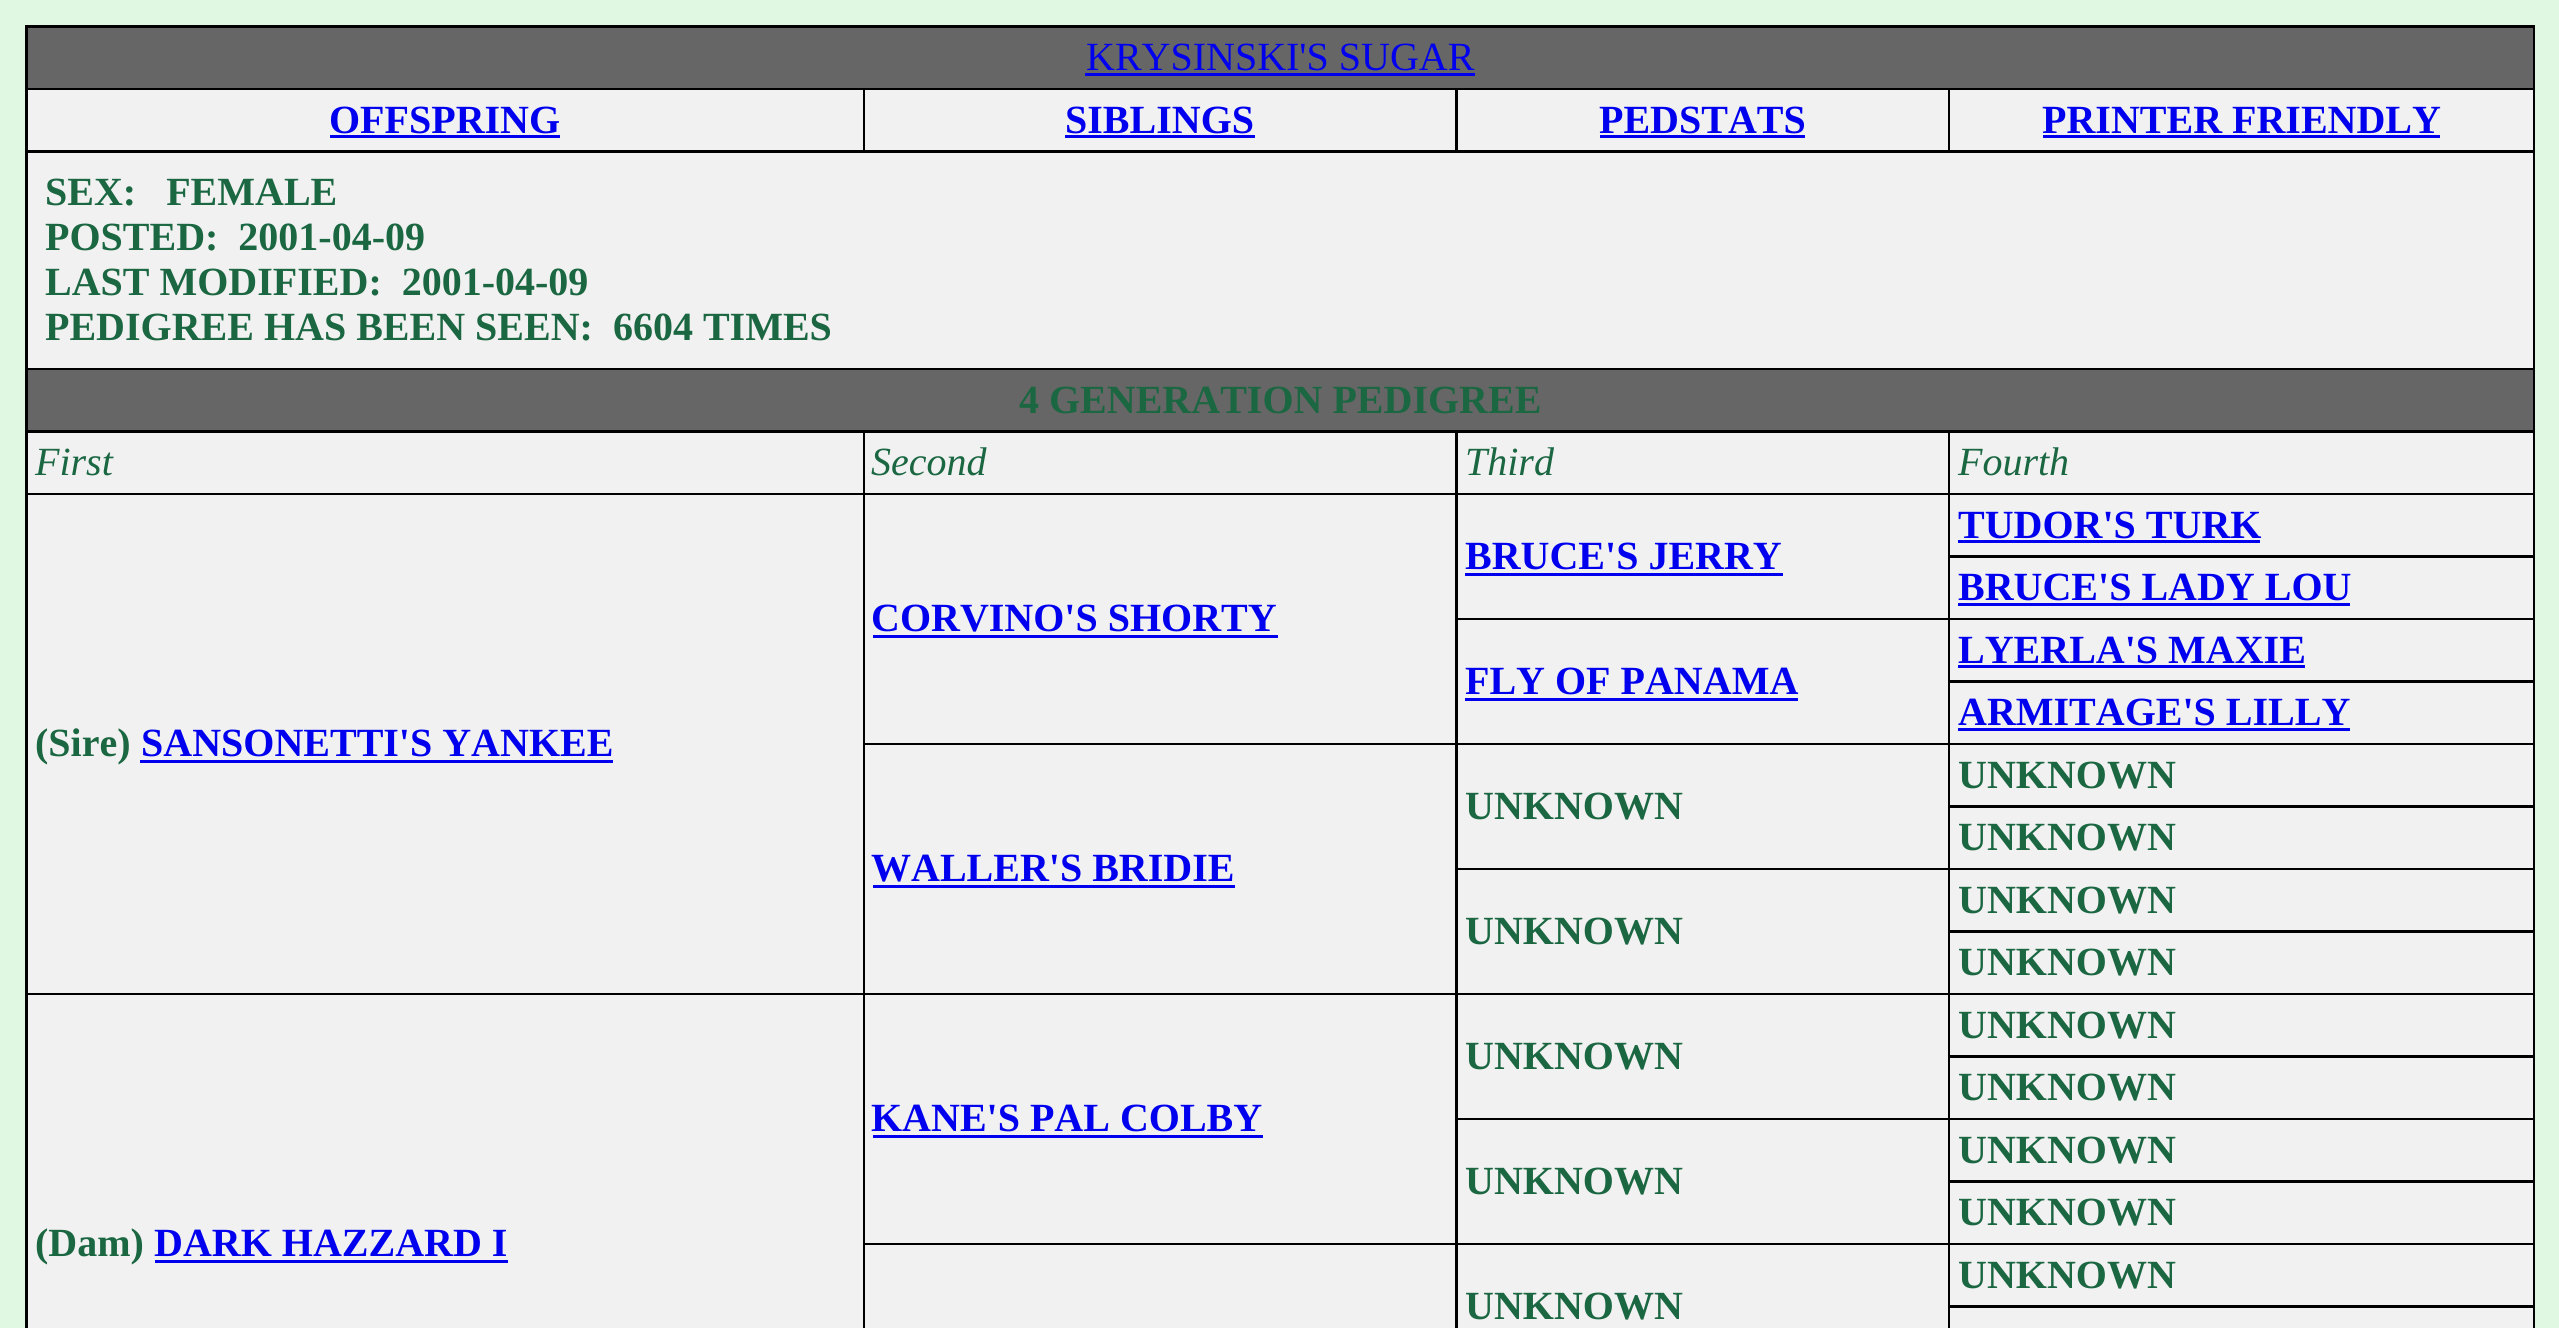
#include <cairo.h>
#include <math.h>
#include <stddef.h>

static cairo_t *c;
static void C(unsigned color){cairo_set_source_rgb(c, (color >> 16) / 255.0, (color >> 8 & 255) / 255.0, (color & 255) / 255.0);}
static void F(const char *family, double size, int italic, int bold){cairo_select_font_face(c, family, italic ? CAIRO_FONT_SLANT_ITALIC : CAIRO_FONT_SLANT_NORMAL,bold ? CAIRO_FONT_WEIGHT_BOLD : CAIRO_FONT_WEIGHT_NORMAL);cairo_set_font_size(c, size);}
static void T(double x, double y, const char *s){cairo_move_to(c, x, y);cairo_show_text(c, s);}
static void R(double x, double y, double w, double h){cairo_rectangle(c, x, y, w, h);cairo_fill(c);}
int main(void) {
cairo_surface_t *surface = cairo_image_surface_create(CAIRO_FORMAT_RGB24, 2559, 1328);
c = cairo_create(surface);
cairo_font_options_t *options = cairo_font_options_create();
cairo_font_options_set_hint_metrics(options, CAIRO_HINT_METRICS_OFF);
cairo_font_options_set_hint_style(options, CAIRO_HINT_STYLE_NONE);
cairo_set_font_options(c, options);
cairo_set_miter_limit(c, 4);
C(0xe0f8e2);
cairo_paint(c);
C(0x000000);
R(25,25,2510,1303);
C(0x666666);
R(28,28,2505,60);
F("Liberation Serif",40,0,0);
C(0x0000ee);
T(1086,70,"KRYSINSKI'S SUGAR");
R(1085,73,390,3);
C(0xf1f1f1);
R(28,90,835,60);
F("Liberation Serif",40,0,1);
C(0x0000ee);
T(329,133,"OFFSPRING");
R(330,135,230,3);
C(0xf1f1f1);
R(865,90,590,60);
C(0x0000ee);
T(1065,133,"SIBLINGS");
R(1065,135,190,3);
C(0xf1f1f1);
R(1458,90,490,60);
C(0x0000ee);
T(1599,133,"PEDSTATS");
R(1600,135,205,3);
C(0xf1f1f1);
R(1950,90,583,60);
C(0x0000ee);
T(2042,133,"PRINTER FRIENDLY");
R(2043,135,397,3);
C(0xf1f1f1);
R(28,153,2505,215);
C(0x1a6742);
T(45,205,"SEX:   FEMALE");
T(45,250,"POSTED:  2001-04-09");
T(45,295,"LAST MODIFIED:  2001-04-09");
T(45,340,"PEDIGREE HAS BEEN SEEN:  6604 TIMES");
C(0x666666);
R(28,370,2505,60);
C(0x1a6742);
T(1019,413,"4 GENERATION PEDIGREE");
C(0xf1f1f1);
R(28,433,835,60);
F("Liberation Serif",40,1,0);
C(0x1a6742);
T(35,475,"First");
C(0xf1f1f1);
R(865,433,590,60);
C(0x1a6742);
T(871,475,"Second");
C(0xf1f1f1);
R(1458,433,490,60);
C(0x1a6742);
T(1465,475,"Third");
C(0xf1f1f1);
R(1950,433,583,60);
C(0x1a6742);
T(1958,475,"Fourth");
C(0xf1f1f1);
R(1950,495,583,60);
F("Liberation Serif",40,0,1);
C(0x0000ee);
T(1958,538,"TUDOR'S TURK");
R(1958,540,302,3);
C(0xf1f1f1);
R(1458,495,490,123);
C(0x0000ee);
T(1465,569,"BRUCE'S JERRY");
R(1465,573,318,3);
C(0xf1f1f1);
R(865,495,590,248);
C(0x0000ee);
T(871,631,"CORVINO'S SHORTY");
R(873,635,405,3);
C(0xf1f1f1);
R(28,495,835,498);
C(0x1a6742);
T(35,756,"(Sire)");
C(0x0000ee);
T(141,756,"SANSONETTI'S YANKEE");
R(140,760,473,3);
C(0xf1f1f1);
R(1950,558,583,60);
C(0x0000ee);
T(1958,600,"BRUCE'S LADY LOU");
R(1958,603,392,3);
C(0xf1f1f1);
R(1950,620,583,60);
C(0x0000ee);
T(1958,663,"LYERLA'S MAXIE");
R(1958,665,347,3);
C(0xf1f1f1);
R(1458,620,490,123);
C(0x0000ee);
T(1465,694,"FLY OF PANAMA");
R(1465,698,333,3);
C(0xf1f1f1);
R(1950,683,583,60);
C(0x0000ee);
T(1958,725,"ARMITAGE'S LILLY");
R(1958,728,392,3);
C(0xf1f1f1);
R(1950,745,583,60);
C(0x1a6742);
T(1958,788,"UNKNOWN");
C(0xf1f1f1);
R(1458,745,490,123);
C(0x1a6742);
T(1465,819,"UNKNOWN");
C(0xf1f1f1);
R(865,745,590,248);
C(0x0000ee);
T(871,881,"WALLER'S BRIDIE");
R(873,885,362,3);
C(0xf1f1f1);
R(1950,808,583,60);
C(0x1a6742);
T(1958,850,"UNKNOWN");
C(0xf1f1f1);
R(1950,870,583,60);
C(0x1a6742);
T(1958,913,"UNKNOWN");
C(0xf1f1f1);
R(1458,870,490,123);
C(0x1a6742);
T(1465,944,"UNKNOWN");
C(0xf1f1f1);
R(1950,933,583,60);
C(0x1a6742);
T(1958,975,"UNKNOWN");
C(0xf1f1f1);
R(1950,995,583,60);
C(0x1a6742);
T(1958,1038,"UNKNOWN");
C(0xf1f1f1);
R(1458,995,490,123);
C(0x1a6742);
T(1465,1069,"UNKNOWN");
C(0xf1f1f1);
R(865,995,590,248);
C(0x0000ee);
T(871,1131,"KANE'S PAL COLBY");
R(873,1135,390,3);
C(0xf1f1f1);
R(28,995,835,333);
C(0x1a6742);
T(35,1256,"(Dam)");
C(0x0000ee);
T(154,1256,"DARK HAZZARD I");
R(155,1260,353,3);
C(0xf1f1f1);
R(1950,1058,583,60);
C(0x1a6742);
T(1958,1100,"UNKNOWN");
C(0xf1f1f1);
R(1950,1120,583,60);
C(0x1a6742);
T(1958,1163,"UNKNOWN");
C(0xf1f1f1);
R(1458,1120,490,123);
C(0x1a6742);
T(1465,1194,"UNKNOWN");
C(0xf1f1f1);
R(1950,1183,583,60);
C(0x1a6742);
T(1958,1225,"UNKNOWN");
C(0xf1f1f1);
R(865,1245,590,83);
R(1950,1245,583,60);
C(0x1a6742);
T(1958,1288,"UNKNOWN");
C(0xf1f1f1);
R(1458,1245,490,83);
C(0x1a6742);
T(1465,1319,"UNKNOWN");
C(0xf1f1f1);
R(1950,1308,583,20);
cairo_surface_write_to_png(surface, "o.png");
cairo_font_options_destroy(options);
cairo_destroy(c);
cairo_surface_destroy(surface);
return 0;
}
